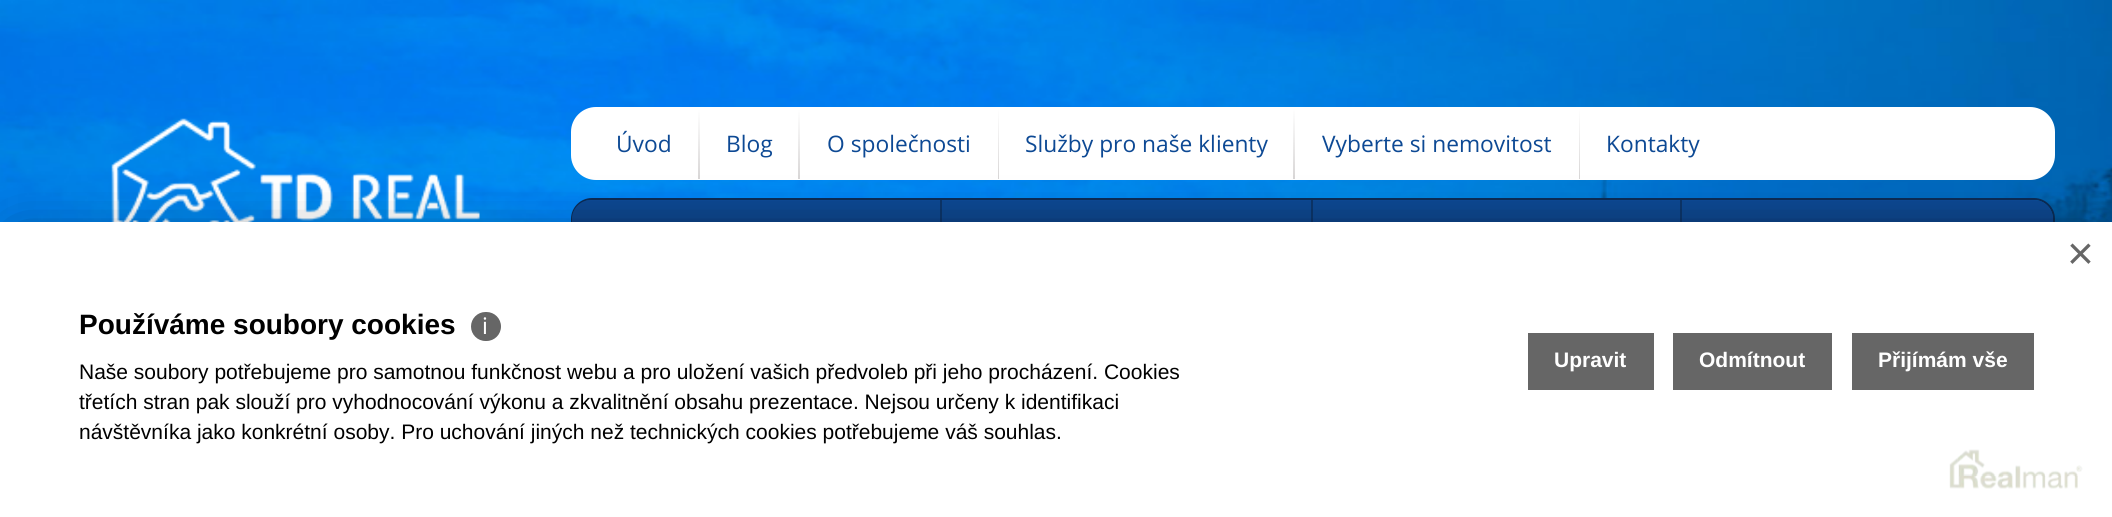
#include <cairo.h>
#include <math.h>
#include <stddef.h>

static cairo_t *c;
static void C(unsigned color){cairo_set_source_rgb(c, (color >> 16) / 255.0, (color >> 8 & 255) / 255.0, (color & 255) / 255.0);}
static void F(const char *family, double size, int italic, int bold){cairo_select_font_face(c, family, italic ? CAIRO_FONT_SLANT_ITALIC : CAIRO_FONT_SLANT_NORMAL,bold ? CAIRO_FONT_WEIGHT_BOLD : CAIRO_FONT_WEIGHT_NORMAL);cairo_set_font_size(c, size);}
static void T(double x, double y, const char *s){cairo_move_to(c, x, y);cairo_show_text(c, s);}
static void R(double x, double y, double w, double h){cairo_rectangle(c, x, y, w, h);cairo_fill(c);}
static void Q(double x, double y, double w, double h, double r){cairo_new_sub_path(c);cairo_arc(c, x + w - r, y + h - r, r, 0, M_PI / 2);cairo_arc(c, x + r, y + h - r, r, M_PI / 2, M_PI);cairo_arc(c, x + r, y + r, r, M_PI, 1.5 * M_PI);cairo_arc(c, x + w - r, y + r, r, 1.5 * M_PI, 2 * M_PI);cairo_close_path(c);}
static void S(double x, double y, double w, double h, double r, double blur, double alpha){cairo_push_group_with_content(c, CAIRO_CONTENT_ALPHA);cairo_set_operator(c, CAIRO_OPERATOR_SOURCE);for (int i = 15; i >= -15 && fmin(w, h) + blur * i / 3 > 0; i -= 2) {double e = blur * i / 6;cairo_set_source_rgba(c, 0, 0, 0, alpha * erfc((i - 1) / 8.5) / 2);Q(x - e, y - e, w + 2 * e, h + 2 * e, fmax(0, fmin(r + e + blur * .6, fmin(w, h) / 2 + e)));cairo_fill(c);}cairo_pattern_t *soft = cairo_pop_group(c);cairo_mask(c, soft);cairo_pattern_destroy(soft);}
static void I(const char *path, double x, double y, double w, double h){cairo_surface_t *image = cairo_image_surface_create_from_png(path);cairo_save(c);cairo_set_source_surface(c, image, x, y);cairo_rectangle(c, x, y, w, h);cairo_fill(c);cairo_restore(c);cairo_surface_destroy(image);}
int main(void) {
cairo_surface_t *surface = cairo_image_surface_create(CAIRO_FORMAT_RGB24, 2112, 517);
c = cairo_create(surface);
cairo_font_options_t *options = cairo_font_options_create();
cairo_font_options_set_hint_metrics(options, CAIRO_HINT_METRICS_OFF);
cairo_font_options_set_hint_style(options, CAIRO_HINT_STYLE_NONE);
cairo_set_font_options(c, options);
cairo_set_miter_limit(c, 4);
cairo_pattern_t *gradient;
C(0xffffff);
cairo_paint(c);
I("1.png",0,0,2112,222);
I("2.png",111,118,369,104);
C(0xffffff);
Q(572,108,1482,71,24);
cairo_fill_preserve(c);
cairo_stroke(c);
gradient = cairo_pattern_create_linear(645,109,645,179);
cairo_pattern_add_color_stop_rgba(gradient,0,1,1,1,1);
cairo_pattern_add_color_stop_rgba(gradient,1,0.847,0.839,0.839,1);
cairo_set_source(c,gradient);
cairo_pattern_destroy(gradient);
R(698,109,2,70);
F("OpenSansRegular",22.75,0,0);
C(0x0d4994);
T(616,152,"Úvod");
gradient = cairo_pattern_create_linear(750,109,750,179);
cairo_pattern_add_color_stop_rgba(gradient,0,1,1,1,1);
cairo_pattern_add_color_stop_rgba(gradient,1,0.847,0.839,0.839,1);
cairo_set_source(c,gradient);
cairo_pattern_destroy(gradient);
R(798,109,2,70);
C(0x0d4994);
T(726,152,"Blog");
gradient = cairo_pattern_create_linear(900,108,900,179);
cairo_pattern_add_color_stop_rgba(gradient,0,1,1,1,1);
cairo_pattern_add_color_stop_rgba(gradient,1,0.847,0.839,0.839,1);
cairo_set_source(c,gradient);
cairo_pattern_destroy(gradient);
R(998,109,1,70);
C(0x0d4994);
T(827,152,"O společnosti");
gradient = cairo_pattern_create_linear(1147,108,1147,179);
cairo_pattern_add_color_stop_rgba(gradient,0,1,1,1,1);
cairo_pattern_add_color_stop_rgba(gradient,1,0.847,0.839,0.839,1);
cairo_set_source(c,gradient);
cairo_pattern_destroy(gradient);
R(1293,109,2,70);
C(0x0d4994);
T(1025,152,"Služby pro naše klienty");
gradient = cairo_pattern_create_linear(1438,108,1438,179);
cairo_pattern_add_color_stop_rgba(gradient,0,1,1,1,1);
cairo_pattern_add_color_stop_rgba(gradient,1,0.847,0.839,0.839,1);
cairo_set_source(c,gradient);
cairo_pattern_destroy(gradient);
R(1579,109,1,70);
C(0x0d4994);
T(1322,152,"Vyberte si nemovitost");
T(1606,152,"Kontakty");
Q(572,199,1482,133,20);
C(0x0b2b55);
cairo_stroke(c);
C(0x0b3468);
cairo_new_path(c);
cairo_move_to(c,591,200);
cairo_line_to(c,942,200);
cairo_line_to(c,942,331);
cairo_line_to(c,591,331);
cairo_curve_to(c,580.5,331,572,322.5,572,312);
cairo_line_to(c,572,219);
cairo_curve_to(c,572,208.5,580.5,200,591,200);
cairo_close_path(c);
cairo_fill(c);
gradient = cairo_pattern_create_linear(756,199,756,331);
cairo_pattern_add_color_stop_rgba(gradient,0,0.051,0.286,0.58,1);
cairo_pattern_add_color_stop_rgba(gradient,1,0.043,0.169,0.333,1);
cairo_set_source(c,gradient);
cairo_pattern_destroy(gradient);
cairo_new_path(c);
cairo_move_to(c,591,200);
cairo_line_to(c,940,200);
cairo_line_to(c,940,331);
cairo_line_to(c,591,331);
cairo_curve_to(c,580.5,331,572,322.5,572,312);
cairo_line_to(c,572,219);
cairo_curve_to(c,572,208.5,580.5,200,591,200);
cairo_close_path(c);
cairo_fill(c);
C(0x0b3468);
R(1311,200,2,22);
gradient = cairo_pattern_create_linear(1126,199,1126,331);
cairo_pattern_add_color_stop_rgba(gradient,0,0.051,0.286,0.58,1);
cairo_pattern_add_color_stop_rgba(gradient,1,0.043,0.169,0.333,1);
cairo_set_source(c,gradient);
cairo_pattern_destroy(gradient);
R(942,200,369,22);
C(0x0b3468);
R(1680,200,2,22);
gradient = cairo_pattern_create_linear(1496,199,1496,331);
cairo_pattern_add_color_stop_rgba(gradient,0,0.051,0.286,0.58,1);
cairo_pattern_add_color_stop_rgba(gradient,1,0.043,0.169,0.333,1);
cairo_set_source(c,gradient);
cairo_pattern_destroy(gradient);
R(1313,200,367,22);
gradient = cairo_pattern_create_linear(1867,199,1867,331);
cairo_pattern_add_color_stop_rgba(gradient,0,0.051,0.286,0.58,1);
cairo_pattern_add_color_stop_rgba(gradient,1,0.043,0.169,0.333,1);
cairo_set_source(c,gradient);
cairo_pattern_destroy(gradient);
cairo_new_path(c);
cairo_move_to(c,1682,200);
cairo_line_to(c,2034,200);
cairo_curve_to(c,2044.5,200,2053,208.5,2053,219);
cairo_line_to(c,2053,312);
cairo_curve_to(c,2053,322.5,2044.5,331,2034,331);
cairo_line_to(c,1682,331);
cairo_close_path(c);
cairo_fill(c);
C(0x000000);
S(18,240,2077,261,0,26,.5);
C(0xffffff);
R(0,222,2112,295);
I("3.png",1949,449,134,40);
F("Liberation Sans",46,0,0);
C(0x666666);
T(2067,269,"×");
F("Liberation Sans",28,0,1);
C(0x000000);
T(79,334,"Používáme soubory cookies");
C(0x666666);
Q(471,312,30,29,14.5);
cairo_fill(c);
F("Noto Sans",22.75,0,0);
C(0xffffff);
T(482,334,"ℹ");
F("Liberation Sans",21,0,0);
C(0x000000);
T(79,379,"Naše soubory potřebujeme pro samotnou funkčnost webu a pro uložení vašich předvoleb při jeho procházení. Cookies");
T(79,409,"třetích stran pak slouží pro vyhodnocování výkonu a zkvalitnění obsahu prezentace. Nejsou určeny k identifikaci");
T(79,439,"návštěvníka jako konkrétní osoby. Pro uchování jiných než technických cookies potřebujeme váš souhlas.");
C(0x666666);
R(1528,333,126,57);
F("Liberation Sans",21,0,1);
C(0xffffff);
T(1554,367,"Upravit");
C(0x666666);
R(1673,333,159,57);
C(0xffffff);
T(1699,367,"Odmítnout");
C(0x666666);
R(1852,333,182,57);
C(0xffffff);
T(1878,367,"Přijímám vše");
cairo_surface_write_to_png(surface, "o.png");
cairo_font_options_destroy(options);
cairo_destroy(c);
cairo_surface_destroy(surface);
return 0;
}
